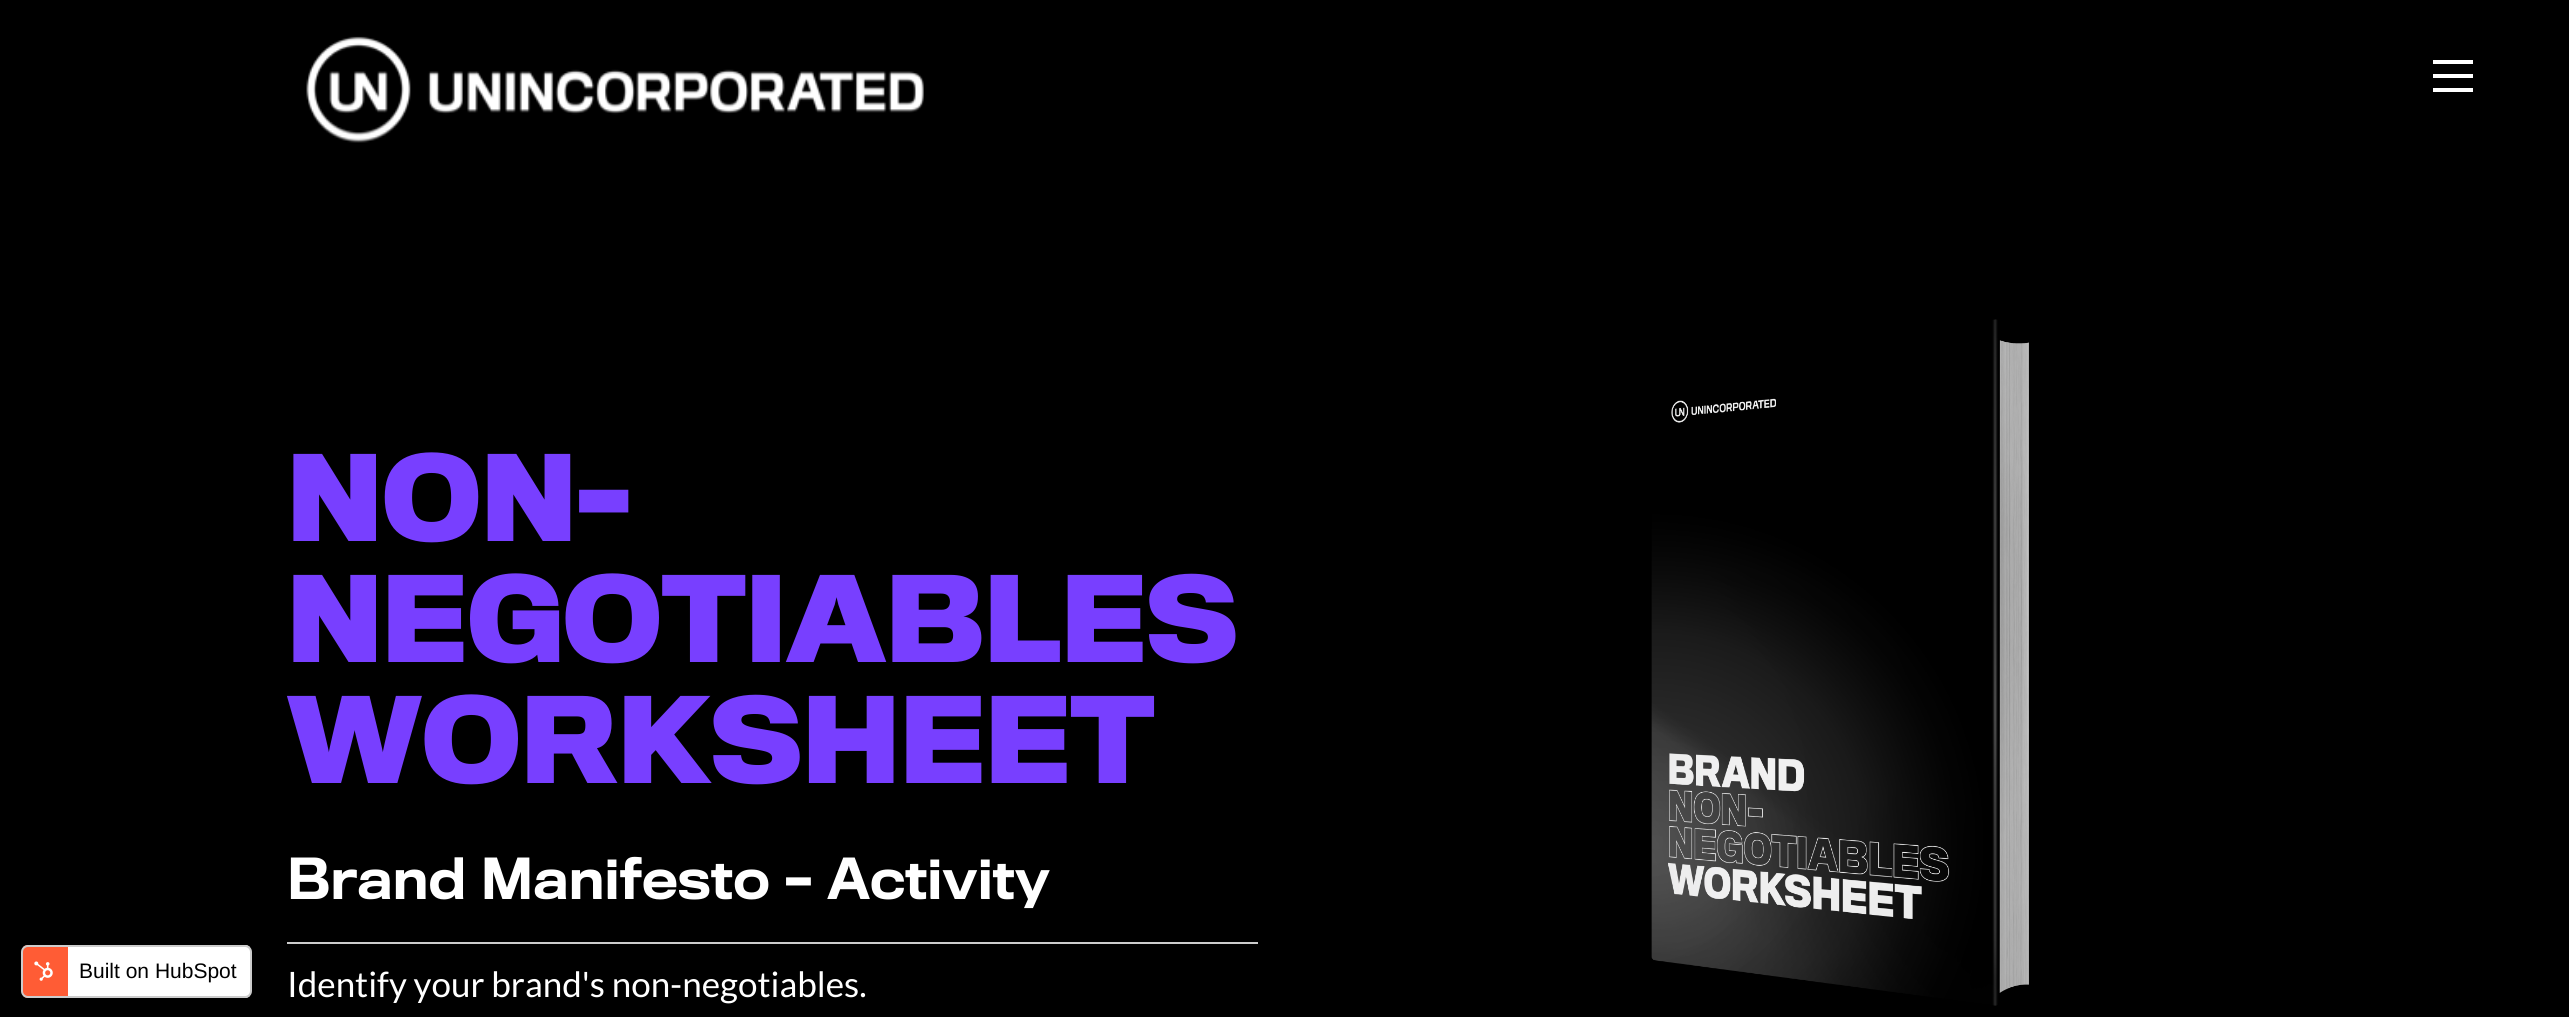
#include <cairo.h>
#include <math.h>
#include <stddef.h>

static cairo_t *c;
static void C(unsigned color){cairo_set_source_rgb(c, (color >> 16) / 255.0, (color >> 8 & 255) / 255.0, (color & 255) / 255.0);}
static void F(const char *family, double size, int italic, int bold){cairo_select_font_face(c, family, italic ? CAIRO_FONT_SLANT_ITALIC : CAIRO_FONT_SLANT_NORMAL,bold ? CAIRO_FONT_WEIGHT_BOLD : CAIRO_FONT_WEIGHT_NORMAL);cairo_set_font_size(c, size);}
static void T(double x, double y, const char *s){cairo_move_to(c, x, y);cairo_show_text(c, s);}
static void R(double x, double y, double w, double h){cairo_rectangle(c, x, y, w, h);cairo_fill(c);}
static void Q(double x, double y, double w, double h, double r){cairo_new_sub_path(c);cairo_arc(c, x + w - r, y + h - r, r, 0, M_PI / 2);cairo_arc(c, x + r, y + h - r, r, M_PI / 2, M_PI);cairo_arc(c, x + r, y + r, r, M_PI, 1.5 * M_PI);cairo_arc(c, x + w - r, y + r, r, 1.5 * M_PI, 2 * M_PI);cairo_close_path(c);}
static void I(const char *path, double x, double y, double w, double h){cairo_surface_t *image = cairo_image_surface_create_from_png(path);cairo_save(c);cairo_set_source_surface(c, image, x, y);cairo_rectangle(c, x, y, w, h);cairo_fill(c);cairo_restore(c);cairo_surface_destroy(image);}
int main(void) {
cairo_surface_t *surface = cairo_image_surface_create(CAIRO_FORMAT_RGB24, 2569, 1017);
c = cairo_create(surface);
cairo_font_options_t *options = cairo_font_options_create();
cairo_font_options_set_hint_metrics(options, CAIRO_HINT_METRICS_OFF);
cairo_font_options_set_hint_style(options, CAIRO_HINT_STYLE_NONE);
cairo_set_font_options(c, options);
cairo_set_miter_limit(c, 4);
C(0x000000);
cairo_paint(c);
cairo_save(c);
Q(21,945,231,53,7);
cairo_clip(c);
C(0xff5c35);
R(23,945,45,53);
C(0xffffff);
R(68,945,182,53);
cairo_restore(c);
Q(22,946,229,51,6);
C(0xcccccc);
cairo_stroke(c);
I("1.png",34,961,19,20);
F("Liberation Sans",21,0,0);
C(0x000000);
T(79,978,"Built on HubSpot");
I("2.png",306,36,618,107);
C(0xffffff);
R(2433,74,40,4);
R(2433,60,40,4);
R(2433,88,40,4);
F("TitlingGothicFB",110.25,0,1);
C(0x783fff);
T(287,541,"NON-");
T(287,662,"NEGOTIABLES");
T(287,783,"WORKSHEET");
F("TitlingGothicFB Medium",52.5,0,0);
C(0xffffff);
T(287,899,"Brand Manifesto – Activity");
C(0xcccccc);
R(287,942,971,2);
F("Lato",35,0,0);
C(0xffffff);
T(287,997,"Identify your brand's non-negotiables.");
I("3.png",1651,319,378,687);
cairo_surface_write_to_png(surface, "o.png");
cairo_font_options_destroy(options);
cairo_destroy(c);
cairo_surface_destroy(surface);
return 0;
}
